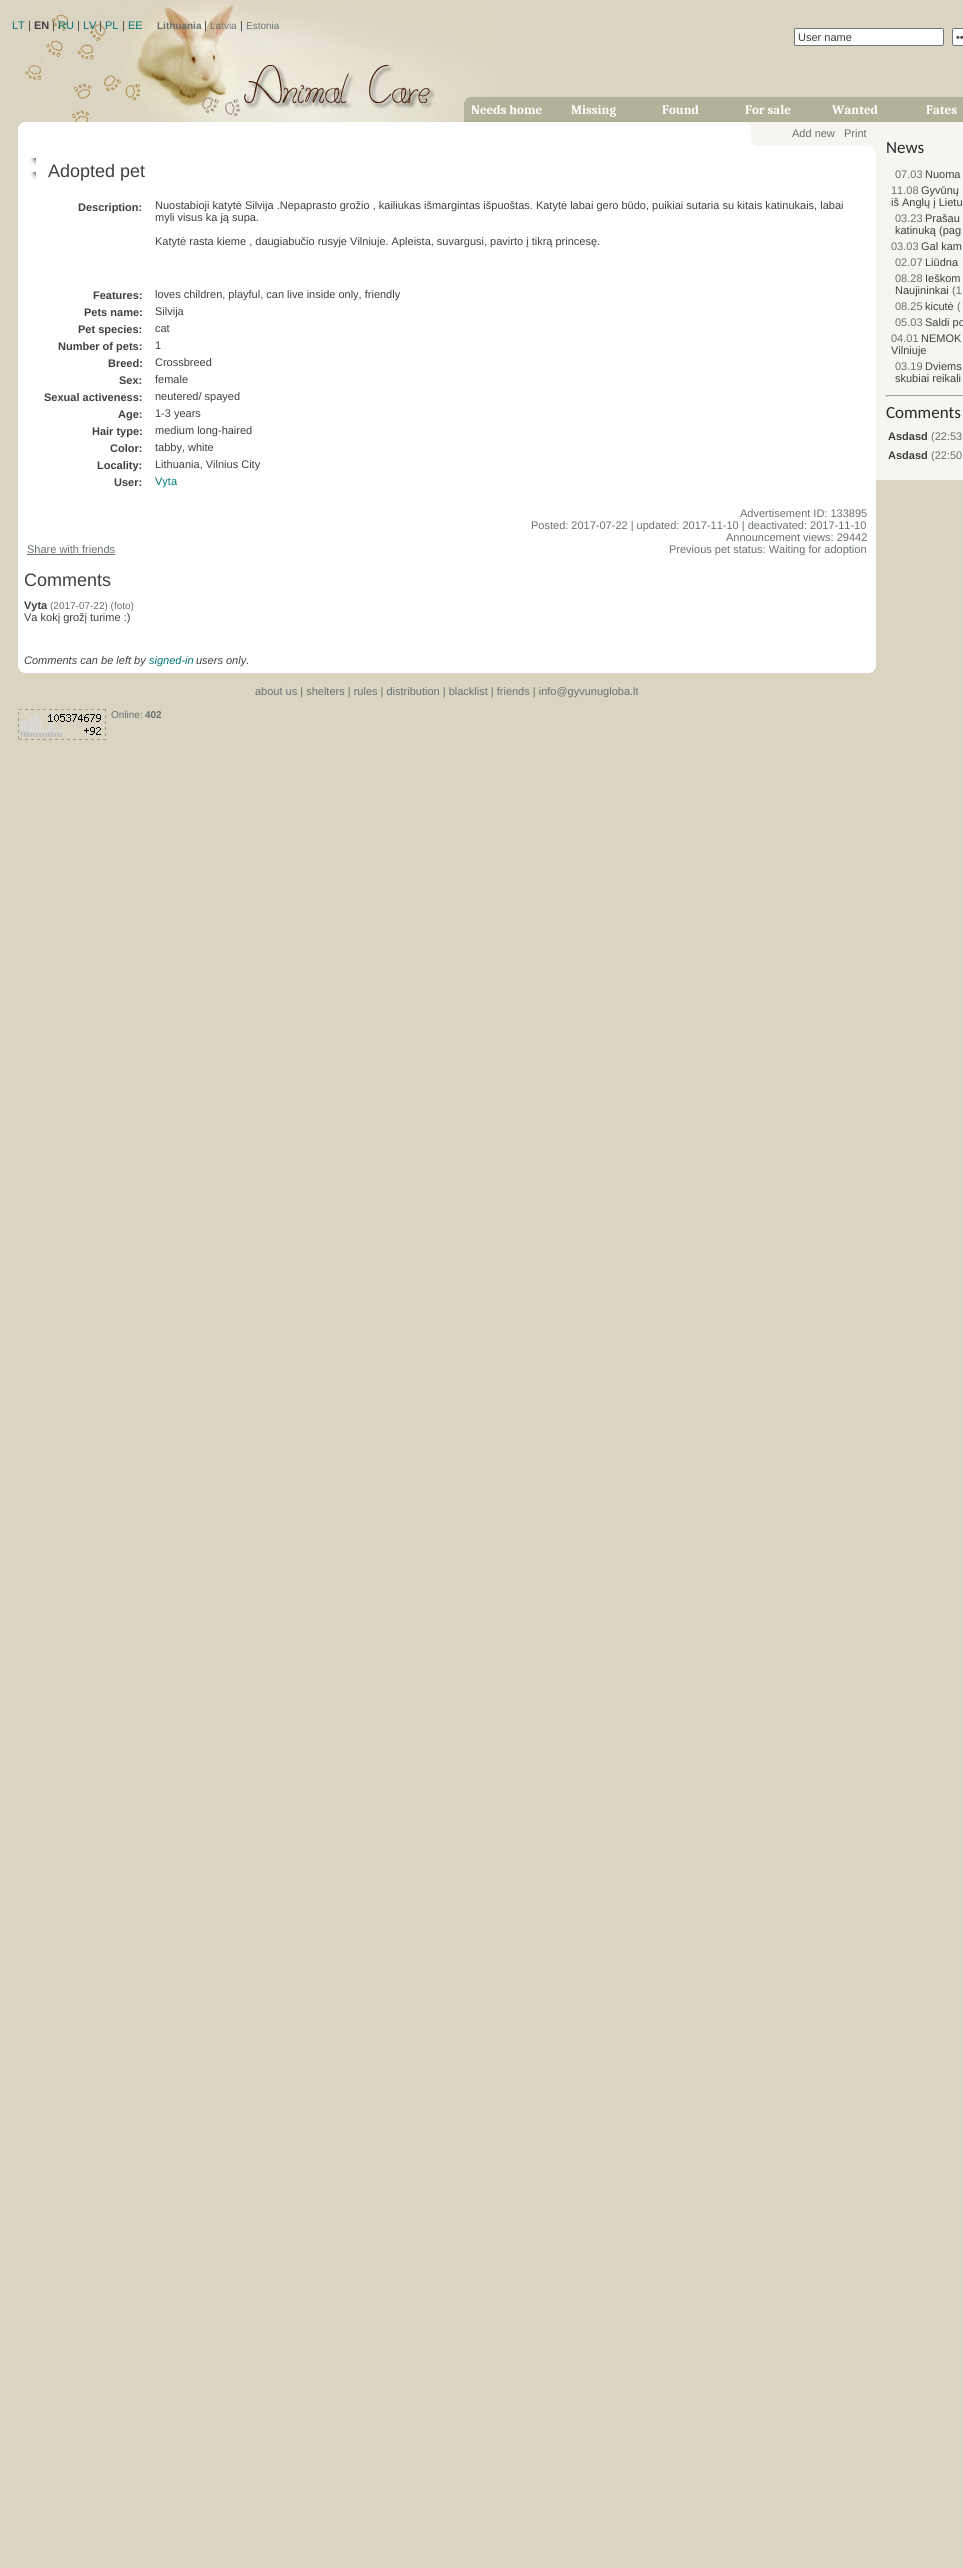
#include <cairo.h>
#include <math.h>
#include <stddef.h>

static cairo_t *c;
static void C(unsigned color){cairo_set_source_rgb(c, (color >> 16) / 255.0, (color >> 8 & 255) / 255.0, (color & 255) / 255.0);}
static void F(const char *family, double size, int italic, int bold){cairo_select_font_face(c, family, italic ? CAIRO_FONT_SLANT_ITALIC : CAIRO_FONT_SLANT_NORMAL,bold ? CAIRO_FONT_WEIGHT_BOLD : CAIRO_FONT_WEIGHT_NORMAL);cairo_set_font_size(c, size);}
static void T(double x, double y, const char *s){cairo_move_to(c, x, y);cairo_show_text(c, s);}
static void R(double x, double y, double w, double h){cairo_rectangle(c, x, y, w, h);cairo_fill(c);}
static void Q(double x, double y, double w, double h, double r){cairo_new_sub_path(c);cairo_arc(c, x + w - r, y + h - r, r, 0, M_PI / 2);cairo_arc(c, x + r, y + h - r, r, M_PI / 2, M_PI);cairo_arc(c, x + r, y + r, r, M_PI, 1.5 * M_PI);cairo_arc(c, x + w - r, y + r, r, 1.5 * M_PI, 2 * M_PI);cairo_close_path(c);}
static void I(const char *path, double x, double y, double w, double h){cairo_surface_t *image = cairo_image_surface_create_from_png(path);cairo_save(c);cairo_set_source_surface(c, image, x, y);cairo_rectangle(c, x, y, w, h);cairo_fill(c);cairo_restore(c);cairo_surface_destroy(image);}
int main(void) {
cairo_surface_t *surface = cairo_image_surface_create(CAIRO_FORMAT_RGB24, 963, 2568);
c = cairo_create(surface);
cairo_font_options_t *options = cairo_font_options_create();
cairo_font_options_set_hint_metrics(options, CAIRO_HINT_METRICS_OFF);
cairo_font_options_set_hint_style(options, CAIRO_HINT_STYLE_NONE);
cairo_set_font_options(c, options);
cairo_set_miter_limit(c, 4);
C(0xdad5c2);
cairo_paint(c);
I("1.png",25,0,471,122);
F("Liberation Sans",11,0,0);
C(0x007575);
T(12,29,"LT");
C(0x404040);
T(28,29,"|");
F("Liberation Sans",11,0,1);
T(34,29,"EN");
F("Liberation Sans",11,0,0);
T(52,29,"|");
C(0x007575);
T(58,29,"RU");
C(0x404040);
T(77,29,"|");
C(0x007575);
T(83,29,"LV");
C(0x404040);
T(99,29,"|");
C(0x007575);
T(105,29,"PL");
C(0x404040);
T(122,29,"|");
C(0x007575);
T(128,29,"EE");
F("Liberation Sans",10,0,1);
C(0x686f6f);
T(157,29,"Lithuania");
F("Liberation Sans",11,0,0);
C(0x404040);
T(204,29,"|");
F("Liberation Sans",10,0,0);
C(0x686f6f);
T(210,29,"Latvia");
F("Liberation Sans",11,0,0);
C(0x404040);
T(240,29,"|");
F("Liberation Sans",10,0,0);
C(0x686f6f);
T(246,29,"Estonia");
I("2.png",202,65,233,52);
C(0xffffff);
Q(794.5,28.5,149,17,1.5);
cairo_fill_preserve(c);
C(0x767676);
cairo_set_line_width(c,1);
cairo_stroke(c);
F("Liberation Sans",11,0,0);
C(0x404040);
T(798,41,"User name");
C(0xffffff);
Q(952.5,28.5,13,17,1.5);
cairo_fill_preserve(c);
C(0x767676);
cairo_stroke(c);
C(0x404040);
T(956,41,"••");
cairo_set_source_rgba(c,0.651,0.651,0.553,0.76);
R(469,97,494,1);
R(467,98,496,1);
R(466,99,497,1);
R(465,100,498,2);
R(464,102,499,20);
F("Caladea",13,0,1);
C(0xffffff);
T(471,114,"Needs home");
T(571,114,"Missing");
T(662,114,"Found");
T(745,114,"For sale");
T(832,114,"Wanted");
T(926,114,"Fates");
R(23,122,723,1);
C(0xf6f5ef);
R(746,122,5,5);
C(0xffffff);
R(21,123,727,1);
R(20,124,729,1);
R(19,125,731,2);
R(18,127,733,19);
R(751,141,5,5);
C(0xf6f5ef);
R(751,122,41,19);
R(752,141,40,2);
R(753,143,39,1);
R(754,144,38,1);
R(756,145,36,1);
R(792,122,84,24);
F("Liberation Sans",11,0,0);
C(0x686f6f);
T(792,137,"Add new");
T(844,137,"Print");
C(0xf6f5ef);
R(871,146,5,5);
C(0xffffff);
R(18,146,853,1);
R(18,147,855,1);
R(18,148,856,1);
R(18,149,857,2);
R(18,151,858,517);
I("3.png",29,158,7,8);
I("3.png",29,172,7,8);
F("Liberation Sans",18,0,0);
C(0x404040);
T(48,177,"Adopted pet");
F("Liberation Sans",11,0,1);
T(78,211,"Description:");
F("Liberation Sans",11,0,0);
T(155,209,"Nuostabioji katytė Silvija .Nepaprasto grožio , kailiukas išmargintas išpuoštas. Katytė labai gero būdo, puikiai sutaria su kitais katinukais, labai");
T(155,221,"myli visus ka ją supa.");
T(155,245,"Katytė rasta kieme , daugiabučio rusyje Vilniuje. Apleista, suvargusi, pavirto į tikrą princesę.");
F("Liberation Sans",11,0,1);
T(93,299,"Features:");
F("Liberation Sans",11,0,0);
T(155,298,"loves children, playful, can live inside only, friendly");
F("Liberation Sans",11,0,1);
T(84,316,"Pets name:");
F("Liberation Sans",11,0,0);
T(155,315,"Silvija");
F("Liberation Sans",11,0,1);
T(78,333,"Pet species:");
F("Liberation Sans",11,0,0);
T(155,332,"cat");
F("Liberation Sans",11,0,1);
T(58,350,"Number of pets:");
F("Liberation Sans",11,0,0);
T(155,349,"1");
F("Liberation Sans",11,0,1);
T(108,367,"Breed:");
F("Liberation Sans",11,0,0);
T(155,366,"Crossbreed");
F("Liberation Sans",11,0,1);
T(119,384,"Sex:");
F("Liberation Sans",11,0,0);
T(155,383,"female");
F("Liberation Sans",11,0,1);
T(44,401,"Sexual activeness:");
F("Liberation Sans",11,0,0);
T(155,400,"neutered/ spayed");
F("Liberation Sans",11,0,1);
T(118,418,"Age:");
F("Liberation Sans",11,0,0);
T(155,417,"1-3 years");
F("Liberation Sans",11,0,1);
T(92,435,"Hair type:");
F("Liberation Sans",11,0,0);
T(155,434,"medium long-haired");
F("Liberation Sans",11,0,1);
T(110,452,"Color:");
F("Liberation Sans",11,0,0);
T(155,451,"tabby, white");
F("Liberation Sans",11,0,1);
T(97,469,"Locality:");
F("Liberation Sans",11,0,0);
T(155,468,"Lithuania, Vilnius City");
F("Liberation Sans",11,0,1);
T(114,486,"User:");
F("Liberation Sans",11,0,0);
C(0x007575);
T(155,485,"Vyta");
C(0x686f6f);
T(27,553,"Share with friends");
R(27,554,88,1);
T(740,517,"Advertisement ID: 133895");
T(531,529,"Posted: 2017-07-22 | updated: 2017-11-10 | deactivated: 2017-11-10");
T(726,541,"Announcement views: 29442");
T(669,553,"Previous pet status: Waiting for adoption");
F("Liberation Sans",18,0,0);
C(0x404040);
T(24,586,"Comments");
F("Liberation Sans",11,0,1);
T(24,609,"Vyta");
F("Liberation Sans",10,0,0);
C(0x686f6f);
T(50,609,"(2017-07-22) (foto)");
F("Liberation Sans",11,0,0);
C(0x404040);
T(24,621,"Va kokį grožį turime :)");
F("Liberation Sans",11,1,0);
T(24,664,"Comments can be left by");
C(0x007575);
T(149,664,"signed-in");
C(0x404040);
T(196,664,"users only.");
C(0xffffff);
R(19,668,856,2);
R(20,670,854,1);
R(21,671,852,1);
R(23,672,848,1);
F("Liberation Sans",11,0,0);
C(0x686f6f);
T(255,695,"about us | shelters | rules | distribution | blacklist | friends | info@gyvunugloba.lt");
I("4.png",18,709,88,31);
F("Liberation Sans",10,0,0);
T(111,718,"Online:");
F("Liberation Sans",10,0,1);
T(145,718,"402");
C(0xf6f5ef);
R(876,122,87,358);
F("Carlito",17,0,0);
C(0x24282a);
T(886,153,"News");
F("Liberation Sans",11,0,0);
C(0x686f6f);
T(895,178,"07.03");
C(0x404040);
T(925,178,"Nuoma");
C(0x686f6f);
T(891,194,"11.08");
C(0x404040);
T(921,194,"Gyvūnų");
T(891,206,"iš Anglų į Lietu");
C(0x686f6f);
T(895,222,"03.23");
C(0x404040);
T(925,222,"Prašau");
T(895,234,"katinuką (pag");
C(0x686f6f);
T(891,250,"03.03");
C(0x404040);
T(921,250,"Gal kam");
C(0x686f6f);
T(895,266,"02.07");
C(0x404040);
T(925,266,"Liūdna");
C(0x686f6f);
T(895,282,"08.28");
C(0x404040);
T(925,282,"Ieškom");
T(895,294,"Naujininkai");
C(0x686f6f);
T(952,294,"(1");
T(895,310,"08.25");
C(0x404040);
T(925,310,"kicutė");
C(0x686f6f);
T(957,310,"(");
T(895,326,"05.03");
C(0x404040);
T(925,326,"Saldi po");
C(0x686f6f);
T(891,342,"04.01");
C(0x404040);
T(921,342,"NEMOK");
T(891,354,"Vilniuje");
C(0x686f6f);
T(895,370,"03.19");
C(0x404040);
T(925,370,"Dviems");
T(895,382,"skubiai reikali");
C(0x9f9f9f);
R(886,395,77,1);
C(0xeeeeee);
R(886,396,77,1);
C(0x9f9f9f);
R(886,395,1,2);
F("Carlito",17,0,0);
C(0x24282a);
T(886,418,"Comments");
F("Liberation Sans",11,0,1);
C(0x404040);
T(888,440,"Asdasd");
F("Liberation Sans",11,0,0);
C(0x686f6f);
T(931,440,"(22:53");
F("Liberation Sans",11,0,1);
C(0x404040);
T(888,459,"Asdasd");
F("Liberation Sans",11,0,0);
C(0x686f6f);
T(931,459,"(22:50");
cairo_surface_write_to_png(surface, "o.png");
cairo_font_options_destroy(options);
cairo_destroy(c);
cairo_surface_destroy(surface);
return 0;
}
